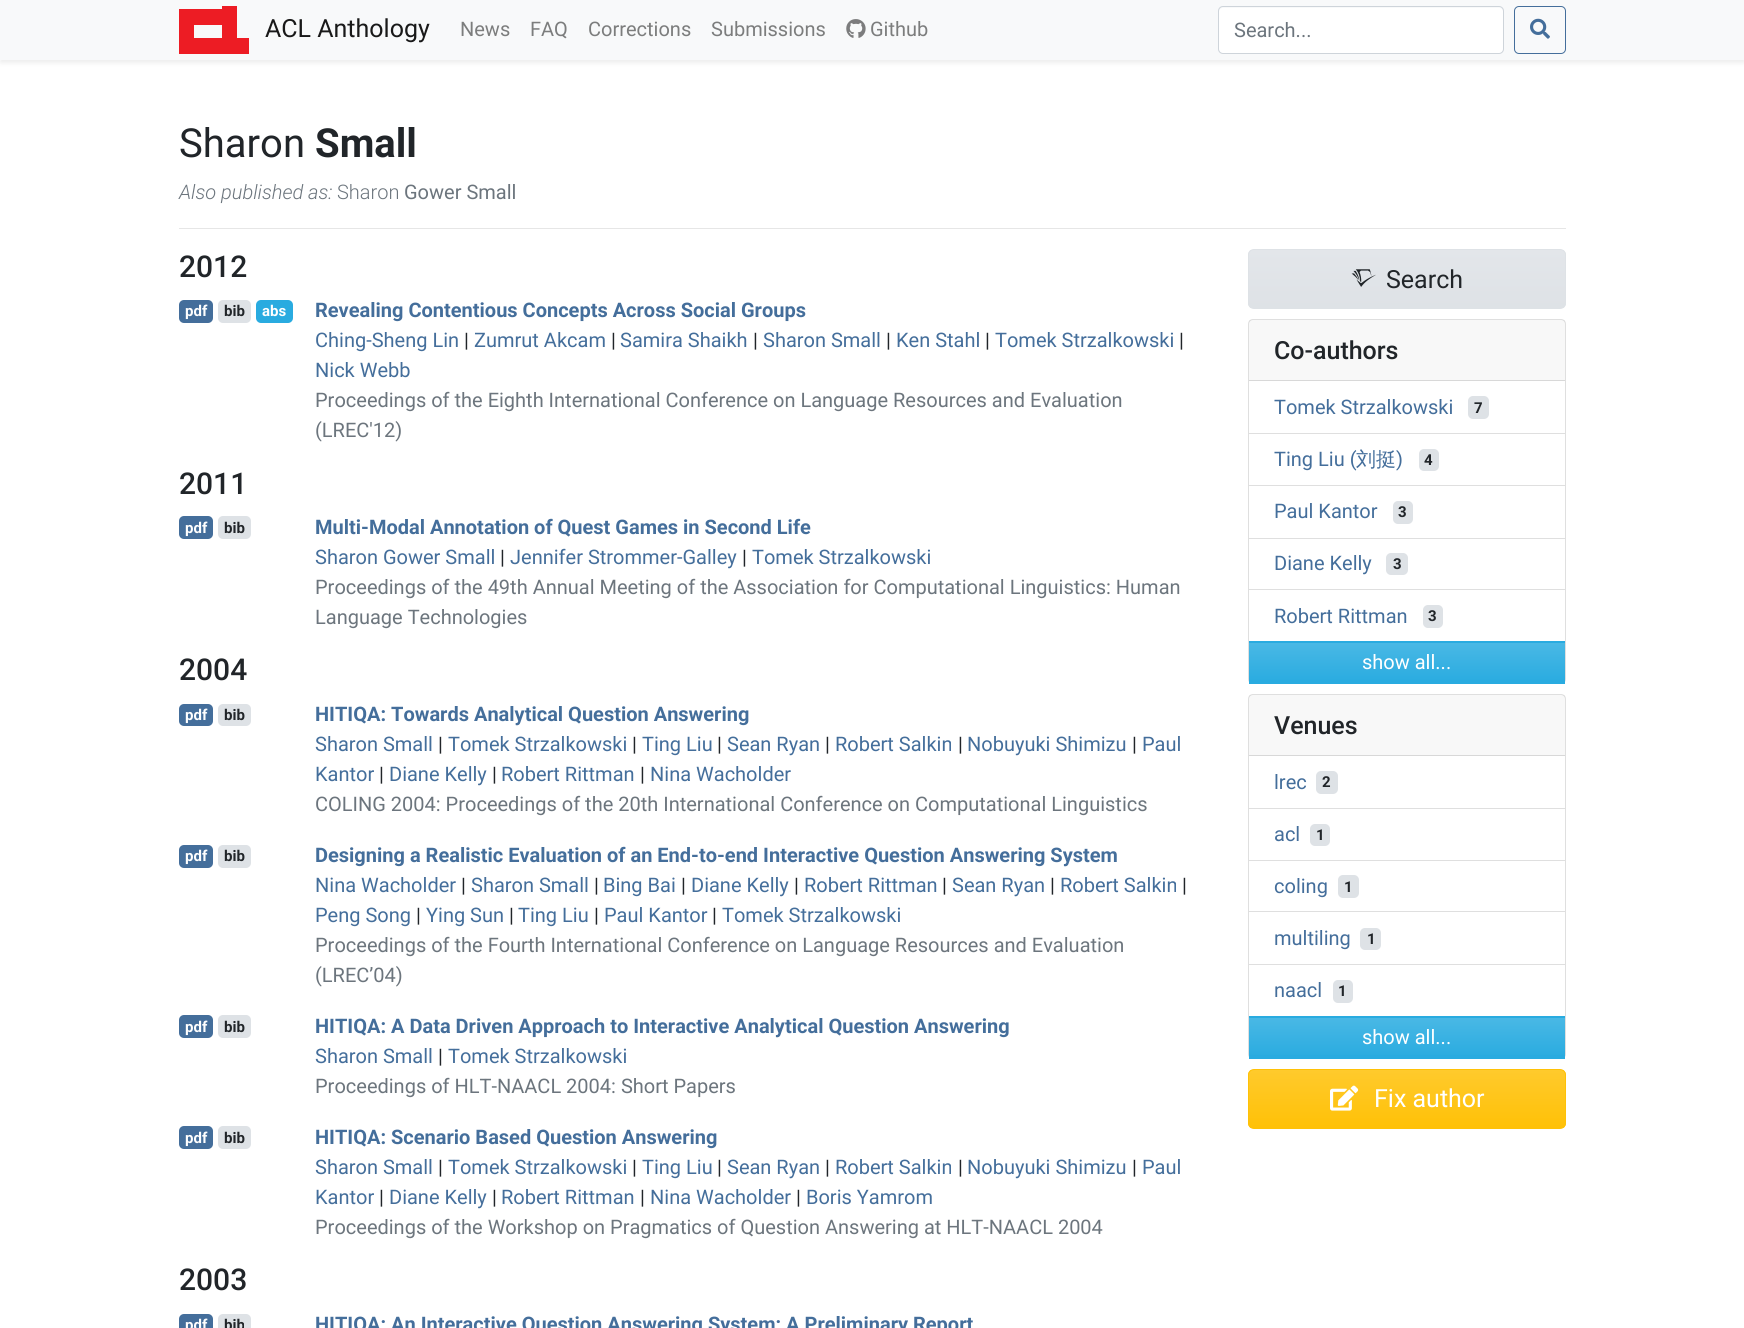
#include <cairo.h>
#include <math.h>
#include <stddef.h>

static cairo_t *c;
static void C(unsigned color){cairo_set_source_rgb(c, (color >> 16) / 255.0, (color >> 8 & 255) / 255.0, (color & 255) / 255.0);}
static void F(const char *family, double size, int italic, int bold){cairo_select_font_face(c, family, italic ? CAIRO_FONT_SLANT_ITALIC : CAIRO_FONT_SLANT_NORMAL,bold ? CAIRO_FONT_WEIGHT_BOLD : CAIRO_FONT_WEIGHT_NORMAL);cairo_set_font_size(c, size);}
static void T(double x, double y, const char *s){cairo_move_to(c, x, y);cairo_show_text(c, s);}
static void R(double x, double y, double w, double h){cairo_rectangle(c, x, y, w, h);cairo_fill(c);}
static void Q(double x, double y, double w, double h, double r){cairo_new_sub_path(c);cairo_arc(c, x + w - r, y + h - r, r, 0, M_PI / 2);cairo_arc(c, x + r, y + h - r, r, M_PI / 2, M_PI);cairo_arc(c, x + r, y + r, r, M_PI, 1.5 * M_PI);cairo_arc(c, x + w - r, y + r, r, 1.5 * M_PI, 2 * M_PI);cairo_close_path(c);}
static void S(double x, double y, double w, double h, double r, double blur, double alpha){cairo_push_group_with_content(c, CAIRO_CONTENT_ALPHA);cairo_set_operator(c, CAIRO_OPERATOR_SOURCE);for (int i = 15; i >= -15 && fmin(w, h) + blur * i / 3 > 0; i -= 2) {double e = blur * i / 6;cairo_set_source_rgba(c, 0, 0, 0, alpha * erfc((i - 1) / 8.5) / 2);Q(x - e, y - e, w + 2 * e, h + 2 * e, fmax(0, fmin(r + e + blur * .6, fmin(w, h) / 2 + e)));cairo_fill(c);}cairo_pattern_t *soft = cairo_pop_group(c);cairo_mask(c, soft);cairo_pattern_destroy(soft);}
static void I(const char *path, double x, double y, double w, double h){cairo_surface_t *image = cairo_image_surface_create_from_png(path);cairo_save(c);cairo_set_source_surface(c, image, x, y);cairo_rectangle(c, x, y, w, h);cairo_fill(c);cairo_restore(c);cairo_surface_destroy(image);}
int main(void) {
cairo_surface_t *surface = cairo_image_surface_create(CAIRO_FORMAT_RGB24, 1744, 1328);
c = cairo_create(surface);
cairo_font_options_t *options = cairo_font_options_create();
cairo_font_options_set_hint_metrics(options, CAIRO_HINT_METRICS_OFF);
cairo_font_options_set_hint_style(options, CAIRO_HINT_STYLE_NONE);
cairo_set_font_options(c, options);
cairo_set_miter_limit(c, 4);
cairo_pattern_t *gradient;
C(0xffffff);
cairo_paint(c);
C(0x000000);
S(0,3,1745,60,0,2.5,.07);
C(0xf8f9fa);
R(0,0,1744,60);
C(0xed1c24);
cairo_set_fill_rule(c,CAIRO_FILL_RULE_EVEN_ODD);
cairo_new_path(c);
cairo_move_to(c,222,6);
cairo_line_to(c,222,9);
cairo_line_to(c,179,9);
cairo_line_to(c,179,54);
cairo_line_to(c,249,54);
cairo_line_to(c,249,38);
cairo_line_to(c,237,38);
cairo_line_to(c,237,6);
cairo_close_path(c);
cairo_move_to(c,194,25);
cairo_line_to(c,222,25);
cairo_line_to(c,222,38);
cairo_line_to(c,194,38);
cairo_close_path(c);
cairo_fill(c);
F("Roboto",25,0,0);
C(0x191919);
T(265,37,"ACL Anthology");
F("Roboto",20,0,0);
C(0x7c7d7d);
T(460,36,"News");
T(530,36,"FAQ");
T(588,36,"Corrections");
T(711,36,"Submissions");
I("1.png",846,19,20,19);
T(870,36,"Github");
C(0xffffff);
Q(1219,8,284,45,4);
cairo_fill(c);
Q(1218.5,6.5,285,47,4.5);
C(0xced4da);
cairo_set_line_width(c,1);
cairo_stroke(c);
C(0x6c757d);
T(1234,37,"Search...");
Q(1514.5,6.5,51,47,4.5);
C(0x446e9b);
cairo_stroke(c);
I("2.png",1530,18,20,21);
F("Roboto",40,0,0);
C(0x212529);
T(179,157,"Sharon");
F("Roboto",40,0,1);
T(315,157,"Small");
F("Roboto Light",20,1,0);
C(0x6c757d);
T(179,199,"Also published as:");
F("Roboto Light",20,0,0);
T(337,199,"Sharon");
F("Roboto",20,0,0);
T(404,199,"Gower Small");
C(0xe6e6e6);
R(179,228,1387,1);
F("Roboto Medium",30,0,0);
C(0x212529);
T(179,277,"2012");
C(0x446e9b);
Q(179,300,34,23,5);
cairo_fill(c);
F("Roboto",15,0,1);
C(0xffffff);
T(185,316,"pdf");
C(0xdee2e6);
Q(218,300,33,23,5);
cairo_fill(c);
C(0x212529);
T(224,316,"bib");
C(0x29abe0);
Q(256,300,37,23,5);
cairo_fill(c);
C(0xffffff);
T(262,316,"abs");
F("Roboto",20,0,1);
C(0x446e9b);
T(315,317,"Revealing Contentious Concepts Across Social Groups");
F("Roboto",20,0,0);
T(315,347,"Ching-Sheng Lin");
C(0x212529);
T(464,347,"|");
C(0x446e9b);
T(474,347,"Zumrut Akcam");
C(0x212529);
T(611,347,"|");
C(0x446e9b);
T(620,347,"Samira Shaikh");
C(0x212529);
T(753,347,"|");
C(0x446e9b);
T(763,347,"Sharon Small");
C(0x212529);
T(886,347,"|");
C(0x446e9b);
T(896,347,"Ken Stahl");
C(0x212529);
T(985,347,"|");
C(0x446e9b);
T(995,347,"Tomek Strzalkowski");
C(0x212529);
T(1179,347,"|");
C(0x446e9b);
T(315,377,"Nick Webb");
C(0x6c757d);
T(315,407,"Proceedings of the Eighth International Conference on Language Resources and Evaluation");
T(315,437,"(LREC'12)");
F("Roboto Medium",30,0,0);
C(0x212529);
T(179,494,"2011");
C(0x446e9b);
Q(179,516,34,23,5);
cairo_fill(c);
F("Roboto",15,0,1);
C(0xffffff);
T(185,533,"pdf");
C(0xdee2e6);
Q(218,516,33,23,5);
cairo_fill(c);
C(0x212529);
T(224,533,"bib");
F("Roboto",20,0,1);
C(0x446e9b);
T(315,534,"Multi-Modal Annotation of Quest Games in Second Life");
F("Roboto",20,0,0);
T(315,564,"Sharon Gower Small");
C(0x212529);
T(500,564,"|");
C(0x446e9b);
T(510,564,"Jennifer Strommer-Galley");
C(0x212529);
T(742,564,"|");
C(0x446e9b);
T(752,564,"Tomek Strzalkowski");
C(0x6c757d);
T(315,594,"Proceedings of the 49th Annual Meeting of the Association for Computational Linguistics: Human");
T(315,624,"Language Technologies");
F("Roboto Medium",30,0,0);
C(0x212529);
T(179,680,"2004");
C(0x446e9b);
Q(179,704,34,22,5);
cairo_fill(c);
F("Roboto",15,0,1);
C(0xffffff);
T(185,720,"pdf");
C(0xdee2e6);
Q(218,704,33,22,5);
cairo_fill(c);
C(0x212529);
T(224,720,"bib");
F("Roboto",20,0,1);
C(0x446e9b);
T(315,721,"HITIQA: Towards Analytical Question Answering");
F("Roboto",20,0,0);
T(315,751,"Sharon Small");
C(0x212529);
T(438,751,"|");
C(0x446e9b);
T(448,751,"Tomek Strzalkowski");
C(0x212529);
T(632,751,"|");
C(0x446e9b);
T(642,751,"Ting Liu");
C(0x212529);
T(717,751,"|");
C(0x446e9b);
T(727,751,"Sean Ryan");
C(0x212529);
T(825,751,"|");
C(0x446e9b);
T(835,751,"Robert Salkin");
C(0x212529);
T(958,751,"|");
C(0x446e9b);
T(967,751,"Nobuyuki Shimizu");
C(0x212529);
T(1132,751,"|");
C(0x446e9b);
T(1142,751,"Paul");
T(315,781,"Kantor");
C(0x212529);
T(379,781,"|");
C(0x446e9b);
T(389,781,"Diane Kelly");
C(0x212529);
T(492,781,"|");
C(0x446e9b);
T(501,781,"Robert Rittman");
C(0x212529);
T(640,781,"|");
C(0x446e9b);
T(650,781,"Nina Wacholder");
C(0x6c757d);
T(315,811,"COLING 2004: Proceedings of the 20th International Conference on Computational Linguistics");
C(0x446e9b);
Q(179,845,34,23,5);
cairo_fill(c);
F("Roboto",15,0,1);
C(0xffffff);
T(185,861,"pdf");
C(0xdee2e6);
Q(218,845,33,23,5);
cairo_fill(c);
C(0x212529);
T(224,861,"bib");
F("Roboto",20,0,1);
C(0x446e9b);
T(315,862,"Designing a Realistic Evaluation of an End-to-end Interactive Question Answering System");
F("Roboto",20,0,0);
T(315,892,"Nina Wacholder");
C(0x212529);
T(461,892,"|");
C(0x446e9b);
T(471,892,"Sharon Small");
C(0x212529);
T(594,892,"|");
C(0x446e9b);
T(603,892,"Bing Bai");
C(0x212529);
T(681,892,"|");
C(0x446e9b);
T(691,892,"Diane Kelly");
C(0x212529);
T(794,892,"|");
C(0x446e9b);
T(804,892,"Robert Rittman");
C(0x212529);
T(942,892,"|");
C(0x446e9b);
T(952,892,"Sean Ryan");
C(0x212529);
T(1050,892,"|");
C(0x446e9b);
T(1060,892,"Robert Salkin");
C(0x212529);
T(1182,892,"|");
C(0x446e9b);
T(315,922,"Peng Song");
C(0x212529);
T(416,922,"|");
C(0x446e9b);
T(426,922,"Ying Sun");
C(0x212529);
T(509,922,"|");
C(0x446e9b);
T(518,922,"Ting Liu");
C(0x212529);
T(594,922,"|");
C(0x446e9b);
T(604,922,"Paul Kantor");
C(0x212529);
T(712,922,"|");
C(0x446e9b);
T(722,922,"Tomek Strzalkowski");
C(0x6c757d);
T(315,952,"Proceedings of the Fourth International Conference on Language Resources and Evaluation");
T(315,982,"(LREC’04)");
C(0x446e9b);
Q(179,1015,34,23,5);
cairo_fill(c);
F("Roboto",15,0,1);
C(0xffffff);
T(185,1032,"pdf");
C(0xdee2e6);
Q(218,1015,33,23,5);
cairo_fill(c);
C(0x212529);
T(224,1032,"bib");
F("Roboto",20,0,1);
C(0x446e9b);
T(315,1033,"HITIQA: A Data Driven Approach to Interactive Analytical Question Answering");
F("Roboto",20,0,0);
T(315,1063,"Sharon Small");
C(0x212529);
T(438,1063,"|");
C(0x446e9b);
T(448,1063,"Tomek Strzalkowski");
C(0x6c757d);
T(315,1093,"Proceedings of HLT-NAACL 2004: Short Papers");
C(0x446e9b);
Q(179,1126,34,23,5);
cairo_fill(c);
F("Roboto",15,0,1);
C(0xffffff);
T(185,1143,"pdf");
C(0xdee2e6);
Q(218,1126,33,23,5);
cairo_fill(c);
C(0x212529);
T(224,1143,"bib");
F("Roboto",20,0,1);
C(0x446e9b);
T(315,1144,"HITIQA: Scenario Based Question Answering");
F("Roboto",20,0,0);
T(315,1174,"Sharon Small");
C(0x212529);
T(438,1174,"|");
C(0x446e9b);
T(448,1174,"Tomek Strzalkowski");
C(0x212529);
T(632,1174,"|");
C(0x446e9b);
T(642,1174,"Ting Liu");
C(0x212529);
T(717,1174,"|");
C(0x446e9b);
T(727,1174,"Sean Ryan");
C(0x212529);
T(825,1174,"|");
C(0x446e9b);
T(835,1174,"Robert Salkin");
C(0x212529);
T(958,1174,"|");
C(0x446e9b);
T(967,1174,"Nobuyuki Shimizu");
C(0x212529);
T(1132,1174,"|");
C(0x446e9b);
T(1142,1174,"Paul");
T(315,1204,"Kantor");
C(0x212529);
T(379,1204,"|");
C(0x446e9b);
T(389,1204,"Diane Kelly");
C(0x212529);
T(492,1204,"|");
C(0x446e9b);
T(501,1204,"Robert Rittman");
C(0x212529);
T(640,1204,"|");
C(0x446e9b);
T(650,1204,"Nina Wacholder");
C(0x212529);
T(796,1204,"|");
C(0x446e9b);
T(806,1204,"Boris Yamrom");
C(0x6c757d);
T(315,1234,"Proceedings of the Workshop on Pragmatics of Question Answering at HLT-NAACL 2004");
F("Roboto Medium",30,0,0);
C(0x212529);
T(179,1290,"2003");
C(0x446e9b);
Q(179,1314,34,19,5);
cairo_fill(c);
F("Roboto",15,0,1);
C(0xffffff);
T(185,1330,"pdf");
C(0xdee2e6);
Q(218,1314,33,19,5);
cairo_fill(c);
C(0x212529);
T(224,1330,"bib");
F("Roboto",20,0,1);
C(0x446e9b);
T(315,1331,"HITIQA: An Interactive Question Answering System: A Preliminary Report");
cairo_save(c);
cairo_set_fill_rule(c,CAIRO_FILL_RULE_WINDING);
Q(1248,249,318,60,6);
cairo_clip(c);
gradient = cairo_pattern_create_linear(1407,250,1407,308);
cairo_pattern_add_color_stop_rgba(gradient,0,0.89,0.902,0.918,1);
cairo_pattern_add_color_stop_rgba(gradient,1,0.871,0.886,0.902,1);
cairo_set_source(c,gradient);
cairo_pattern_destroy(gradient);
R(1248,250,318,58);
cairo_restore(c);
Q(1248.5,249.5,317,59,5.5);
C(0xdee2e6);
cairo_stroke(c);
I("3.png",1351,269,25,18);
F("Roboto",25,0,0);
C(0x212529);
T(1386,288,"Search");
Q(1248.5,319.5,317,364,4.5);
C(0xdfdfdf);
cairo_stroke(c);
cairo_set_source_rgba(c,0,0,0,0.03);
R(1249,320,316,60);
C(0xd8d8d8);
R(1249,380,316,1);
F("Roboto Medium",25,0,0);
C(0x212529);
T(1274,359,"Co-authors");
F("Roboto",20,0,0);
C(0x446e9b);
T(1274,414,"Tomek Strzalkowski");
C(0xdee2e6);
Q(1468,396,21,23,5);
cairo_fill(c);
F("Roboto",15,0,1);
C(0x212529);
T(1474,413,"7");
C(0xdfdfdf);
R(1249,433,316,1);
F("Roboto",20,0,0);
C(0x446e9b);
T(1274,466,"Ting Liu (");
F("WenQuanYi Zen Hei Medium",20,0,0);
T(1356,466,"刘挺");
F("Roboto",20,0,0);
T(1396,466,")");
C(0xdee2e6);
Q(1419,449,20,22,5);
cairo_fill(c);
F("Roboto",15,0,1);
C(0x212529);
T(1424,465,"4");
C(0xdfdfdf);
R(1249,485,316,1);
F("Roboto",20,0,0);
C(0x446e9b);
T(1274,518,"Paul Kantor");
C(0xdee2e6);
Q(1393,501,20,23,5);
cairo_fill(c);
F("Roboto",15,0,1);
C(0x212529);
T(1398,517,"3");
C(0xdfdfdf);
R(1249,538,316,1);
F("Roboto",20,0,0);
C(0x446e9b);
T(1274,570,"Diane Kelly");
C(0xdee2e6);
Q(1386,553,22,22,5);
cairo_fill(c);
F("Roboto",15,0,1);
C(0x212529);
T(1393,569,"3");
C(0xdfdfdf);
R(1249,589,316,1);
F("Roboto",20,0,0);
C(0x446e9b);
T(1274,623,"Robert Rittman");
C(0xdee2e6);
Q(1423,605,20,23,5);
cairo_fill(c);
F("Roboto",15,0,1);
C(0x212529);
T(1428,621,"3");
C(0x29abe0);
R(1249,641,316,43);
gradient = cairo_pattern_create_linear(1407,643,1407,683);
cairo_pattern_add_color_stop_rgba(gradient,0,0.286,0.722,0.898,1);
cairo_pattern_add_color_stop_rgba(gradient,1,0.161,0.671,0.878,1);
cairo_set_source(c,gradient);
cairo_pattern_destroy(gradient);
R(1249,643,316,37);
F("Roboto",20,0,0);
C(0xffffff);
T(1362,669,"show all...");
Q(1248.5,694.5,317,364,4.5);
C(0xdfdfdf);
cairo_stroke(c);
cairo_set_source_rgba(c,0,0,0,0.03);
R(1249,695,316,60);
C(0xd8d8d8);
R(1249,755,316,1);
F("Roboto Medium",25,0,0);
C(0x212529);
T(1274,734,"Venues");
F("Roboto",20,0,0);
C(0x446e9b);
T(1274,789,"lrec");
C(0xdee2e6);
Q(1316,771,22,23,5);
cairo_fill(c);
F("Roboto",15,0,1);
C(0x212529);
T(1322,787,"2");
C(0xdfdfdf);
R(1249,808,316,1);
F("Roboto",20,0,0);
C(0x446e9b);
T(1274,841,"acl");
C(0xdee2e6);
Q(1310,824,20,22,5);
cairo_fill(c);
F("Roboto",15,0,1);
C(0x212529);
T(1316,840,"1");
C(0xdfdfdf);
R(1249,860,316,1);
F("Roboto",20,0,0);
C(0x446e9b);
T(1274,893,"coling");
C(0xdee2e6);
Q(1338,875,21,23,5);
cairo_fill(c);
F("Roboto",15,0,1);
C(0x212529);
T(1344,892,"1");
C(0xdfdfdf);
R(1249,911,316,1);
F("Roboto",20,0,0);
C(0x446e9b);
T(1274,945,"multiling");
C(0xdee2e6);
Q(1360,928,21,22,5);
cairo_fill(c);
F("Roboto",15,0,1);
C(0x212529);
T(1367,944,"1");
C(0xdfdfdf);
R(1249,964,316,1);
F("Roboto",20,0,0);
C(0x446e9b);
T(1274,997,"naacl");
C(0xdee2e6);
Q(1333,980,20,23,5);
cairo_fill(c);
F("Roboto",15,0,1);
C(0x212529);
T(1338,996,"1");
C(0x29abe0);
R(1249,1016,316,43);
gradient = cairo_pattern_create_linear(1407,1018,1407,1058);
cairo_pattern_add_color_stop_rgba(gradient,0,0.286,0.722,0.898,1);
cairo_pattern_add_color_stop_rgba(gradient,1,0.161,0.671,0.878,1);
cairo_set_source(c,gradient);
cairo_pattern_destroy(gradient);
R(1249,1018,316,37);
F("Roboto",20,0,0);
C(0xffffff);
T(1362,1044,"show all...");
cairo_save(c);
cairo_set_fill_rule(c,CAIRO_FILL_RULE_WINDING);
Q(1248,1069,318,60,6);
cairo_clip(c);
gradient = cairo_pattern_create_linear(1407,1070,1407,1128);
cairo_pattern_add_color_stop_rgba(gradient,0,1,0.792,0.173,1);
cairo_pattern_add_color_stop_rgba(gradient,1,1,0.757,0.027,1);
cairo_set_source(c,gradient);
cairo_pattern_destroy(gradient);
R(1248,1070,318,58);
cairo_restore(c);
Q(1248.5,1069.5,317,59,5.5);
C(0xffc107);
cairo_stroke(c);
I("4.png",1330,1085,29,26);
F("Roboto",25,0,0);
C(0xffffff);
T(1374,1107,"Fix author");
cairo_surface_write_to_png(surface, "o.png");
cairo_font_options_destroy(options);
cairo_destroy(c);
cairo_surface_destroy(surface);
return 0;
}
